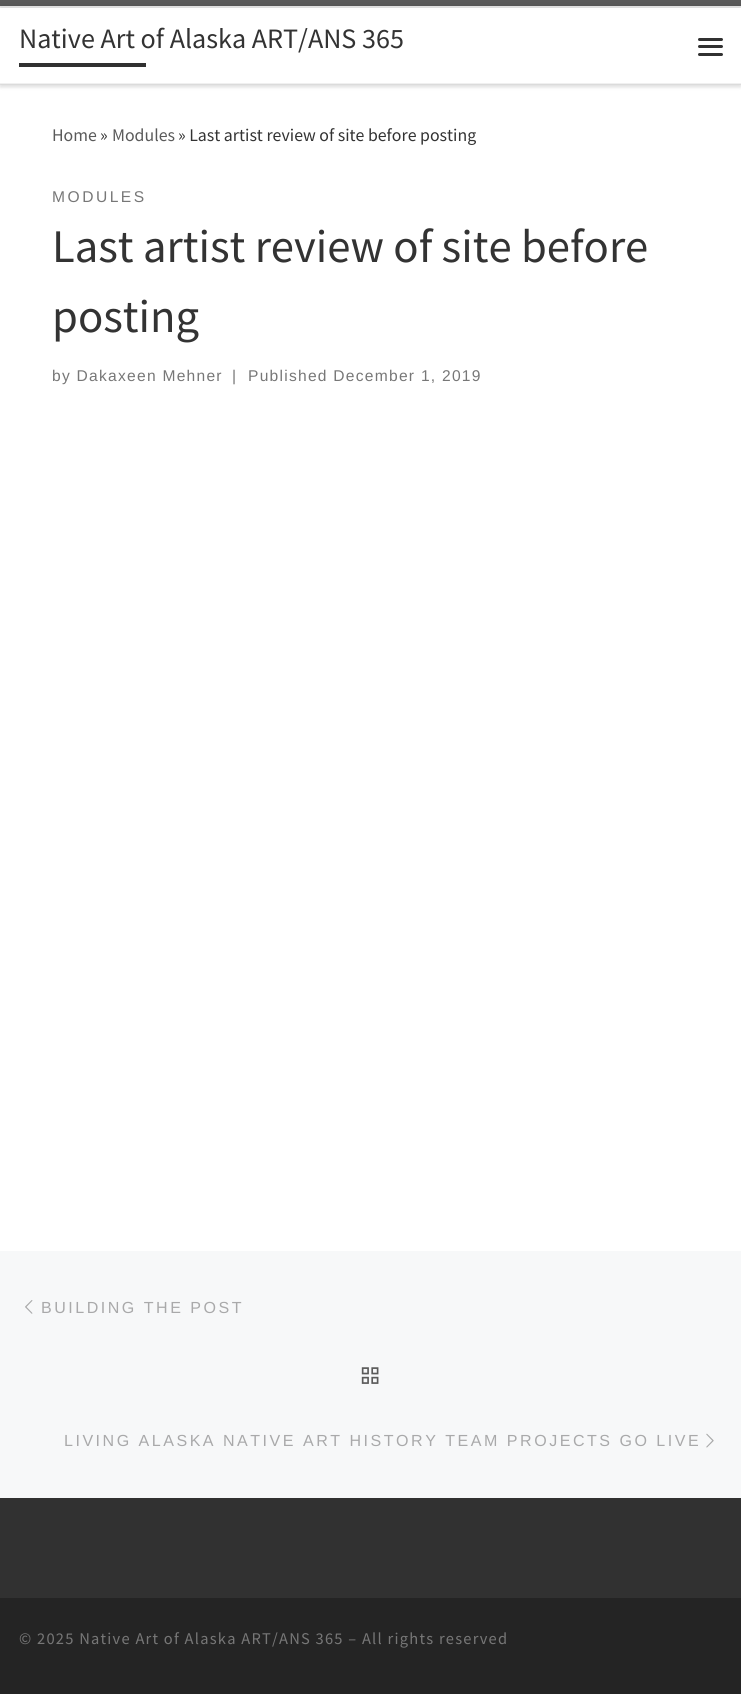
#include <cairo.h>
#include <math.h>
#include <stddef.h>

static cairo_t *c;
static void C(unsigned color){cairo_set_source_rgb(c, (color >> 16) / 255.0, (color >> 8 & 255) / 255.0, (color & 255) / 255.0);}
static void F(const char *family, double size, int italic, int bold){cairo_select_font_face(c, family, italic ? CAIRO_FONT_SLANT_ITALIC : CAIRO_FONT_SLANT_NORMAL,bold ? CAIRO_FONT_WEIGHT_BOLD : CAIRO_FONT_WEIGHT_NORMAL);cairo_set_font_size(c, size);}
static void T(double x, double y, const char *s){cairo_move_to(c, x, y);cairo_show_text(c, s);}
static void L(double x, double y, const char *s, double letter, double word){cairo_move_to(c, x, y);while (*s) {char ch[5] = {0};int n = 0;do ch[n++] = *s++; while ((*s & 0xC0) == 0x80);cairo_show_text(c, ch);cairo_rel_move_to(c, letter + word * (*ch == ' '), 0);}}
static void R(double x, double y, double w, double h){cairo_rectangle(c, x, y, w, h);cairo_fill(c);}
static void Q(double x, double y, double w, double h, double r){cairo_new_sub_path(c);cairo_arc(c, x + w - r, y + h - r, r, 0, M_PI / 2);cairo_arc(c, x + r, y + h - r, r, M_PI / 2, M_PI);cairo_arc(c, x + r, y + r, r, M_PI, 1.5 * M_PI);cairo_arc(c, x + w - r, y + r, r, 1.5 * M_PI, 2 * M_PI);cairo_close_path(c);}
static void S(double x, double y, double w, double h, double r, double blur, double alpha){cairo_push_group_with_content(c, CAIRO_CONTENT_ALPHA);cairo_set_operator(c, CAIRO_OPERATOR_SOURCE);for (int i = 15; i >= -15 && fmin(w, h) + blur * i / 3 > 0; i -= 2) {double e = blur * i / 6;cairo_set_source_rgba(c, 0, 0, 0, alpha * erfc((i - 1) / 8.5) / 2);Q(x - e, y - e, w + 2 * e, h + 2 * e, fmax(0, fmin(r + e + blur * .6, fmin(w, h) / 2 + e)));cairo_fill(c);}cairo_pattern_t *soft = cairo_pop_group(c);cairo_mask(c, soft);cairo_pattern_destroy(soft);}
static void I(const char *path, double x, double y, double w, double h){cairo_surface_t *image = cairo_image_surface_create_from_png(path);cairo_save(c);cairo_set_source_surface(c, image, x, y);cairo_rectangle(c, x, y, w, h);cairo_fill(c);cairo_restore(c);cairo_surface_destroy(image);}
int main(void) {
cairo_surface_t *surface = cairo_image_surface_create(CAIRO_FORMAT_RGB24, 741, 1694);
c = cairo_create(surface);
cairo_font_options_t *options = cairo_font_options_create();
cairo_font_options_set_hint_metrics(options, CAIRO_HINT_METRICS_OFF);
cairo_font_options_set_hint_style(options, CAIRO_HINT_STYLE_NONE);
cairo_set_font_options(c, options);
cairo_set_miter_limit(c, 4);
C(0xffffff);
cairo_paint(c);
C(0x666666);
S(0,3,741,85,0,1,.08);
C(0x5a5a5a);
R(0,0,741,6);
C(0xececec);
R(0,6,741,1);
C(0xefefef);
R(0,84,741,1);
C(0x000000);
S(0,8,741,76,0,3,.2);
C(0xffffff);
R(0,8,741,75);
F("Source Sans Pro",28.1,0,0);
C(0x333333);
T(19,48,"Native Art of Alaska ART/ANS 365");
C(0x313131);
R(19,63,127,4);
Q(698,38,25,3,1.5);
cairo_fill(c);
Q(698,45,25,3,1.5);
cairo_fill(c);
Q(698,53,25,3,1.5);
cairo_fill(c);
C(0xf0f0f0);
R(0,83,741,1);
F("Source Sans Pro",17.8,0,0);
C(0x5a5a5a);
T(52,141,"Home");
C(0x333333);
T(100,141,"»");
C(0x5a5a5a);
T(112,141,"Modules");
C(0x333333);
T(178,141,"» Last artist review of site before posting");
F("Liberation Sans",15.6,0,0);
C(0x777777);
L(52,202,"MODULES",2.5,0);
F("Source Sans Pro",46.7,0,0);
C(0x333333);
T(52,262,"Last artist review of site before");
T(52,332,"posting");
F("Liberation Sans",15.6,0,0);
C(0x777777);
L(52,381,"by Dakaxeen Mehner",1.25,0);
L(232,381,"|",1.25,0);
L(248,381,"Published December 1, 2019",1.25,0);
C(0xf7f8f9);
R(0,1251,741,247);
I("1.png",25,1300,8,14);
F("Liberation Sans",16.05,0,0);
C(0xa9a9aa);
L(41,1313,"BUILDING THE POST",2.5,0);
I("2.png",361,1367,18,17);
L(64,1446,"LIVING ALASKA NATIVE ART HISTORY TEAM PROJECTS GO LIVE",2.5,0);
I("3.png",706,1433,8,15);
C(0x313131);
R(0,1498,741,100);
C(0x242424);
R(0,1598,741,96);
F("Source Sans Pro",16.4,0,0);
C(0x777777);
L(19,1644,"© 2025 Native Art of Alaska ART/ANS 365 – All rights reserved",1.25,0);
cairo_surface_write_to_png(surface, "o.png");
cairo_font_options_destroy(options);
cairo_destroy(c);
cairo_surface_destroy(surface);
return 0;
}
